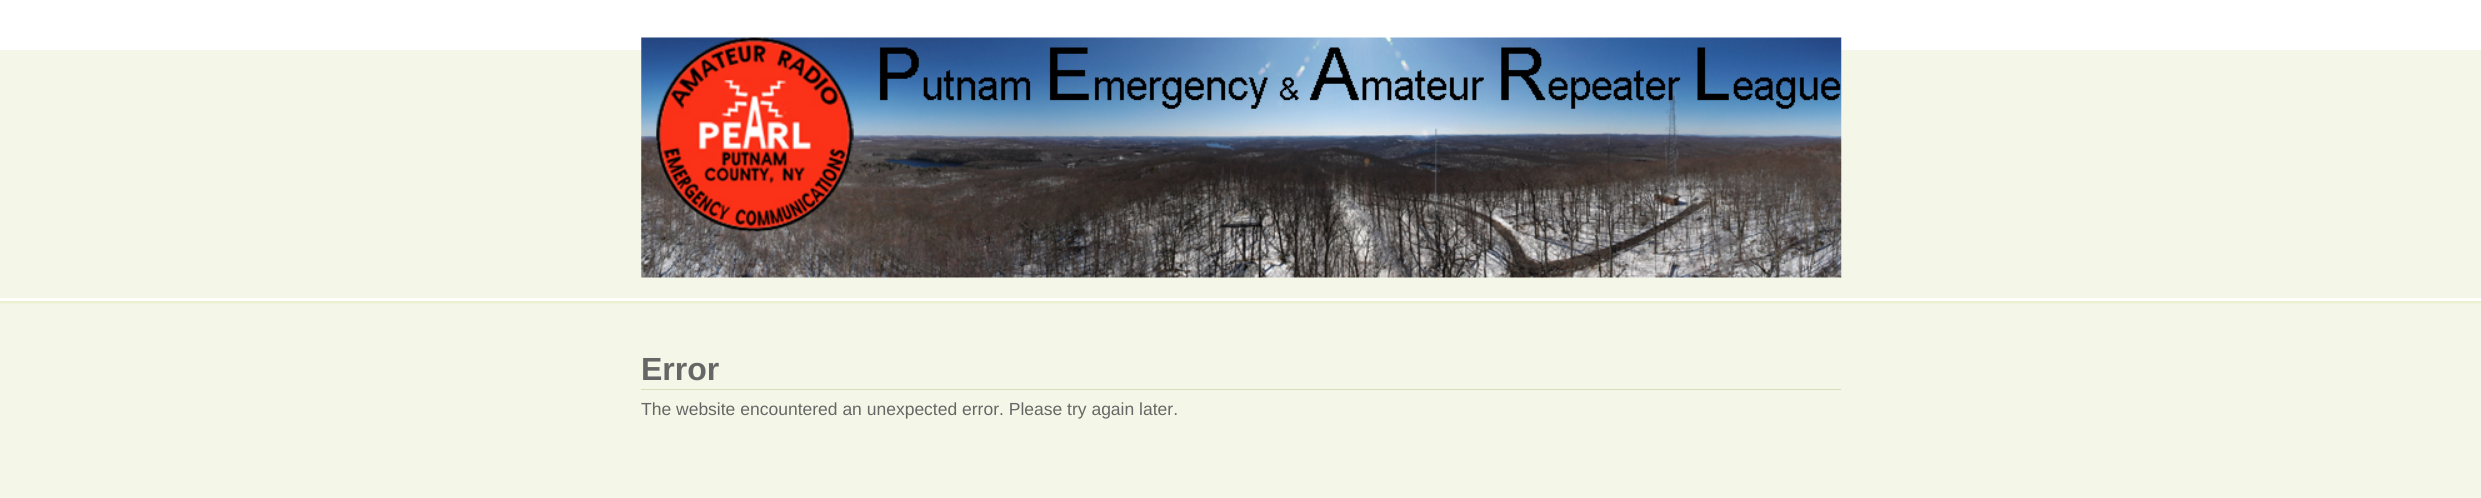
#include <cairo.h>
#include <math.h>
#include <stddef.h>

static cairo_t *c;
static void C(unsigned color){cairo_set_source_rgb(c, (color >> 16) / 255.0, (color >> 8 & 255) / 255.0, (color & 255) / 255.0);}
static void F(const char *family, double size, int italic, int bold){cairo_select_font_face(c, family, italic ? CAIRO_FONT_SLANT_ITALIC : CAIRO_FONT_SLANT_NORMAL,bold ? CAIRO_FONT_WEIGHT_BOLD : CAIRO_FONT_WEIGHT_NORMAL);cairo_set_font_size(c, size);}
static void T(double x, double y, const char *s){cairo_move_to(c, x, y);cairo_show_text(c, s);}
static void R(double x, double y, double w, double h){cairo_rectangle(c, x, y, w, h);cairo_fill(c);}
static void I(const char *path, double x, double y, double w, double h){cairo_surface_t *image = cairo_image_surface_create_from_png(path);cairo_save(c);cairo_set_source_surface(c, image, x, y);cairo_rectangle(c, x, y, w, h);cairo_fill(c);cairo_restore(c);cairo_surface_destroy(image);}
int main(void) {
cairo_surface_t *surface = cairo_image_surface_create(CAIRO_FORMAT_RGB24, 2481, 498);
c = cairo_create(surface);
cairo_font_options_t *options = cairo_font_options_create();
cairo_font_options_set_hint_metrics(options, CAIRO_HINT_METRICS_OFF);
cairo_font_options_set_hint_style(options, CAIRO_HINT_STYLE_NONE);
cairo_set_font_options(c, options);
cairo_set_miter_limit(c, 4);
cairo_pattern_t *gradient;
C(0xf4f7e7);
cairo_paint(c);
C(0xffffff);
R(0,0,2481,50);
I("1.png",641,37,1201,241);
gradient = cairo_pattern_create_linear(0,300,0,350);
cairo_pattern_add_color_stop_rgba(gradient,0,0.894,0.929,0.761,1);
cairo_pattern_add_color_stop_rgba(gradient,.1,0.961,0.969,0.906,1);
cairo_pattern_add_color_stop_rgba(gradient,1,0.961,0.969,0.906,1);
cairo_set_source(c,gradient);
cairo_pattern_destroy(gradient);
R(0,301,2481,4);
C(0xffffff);
R(0,298,2481,3);
C(0xd6ddb9);
R(641,389,1200,1);
F("Liberation Sans",32,0,1);
C(0x666666);
T(641,380,"Error");
F("Liberation Sans",17.5,0,0);
T(641,415,"The website encountered an unexpected error. Please try again later.");
cairo_surface_write_to_png(surface, "o.png");
cairo_font_options_destroy(options);
cairo_destroy(c);
cairo_surface_destroy(surface);
return 0;
}
